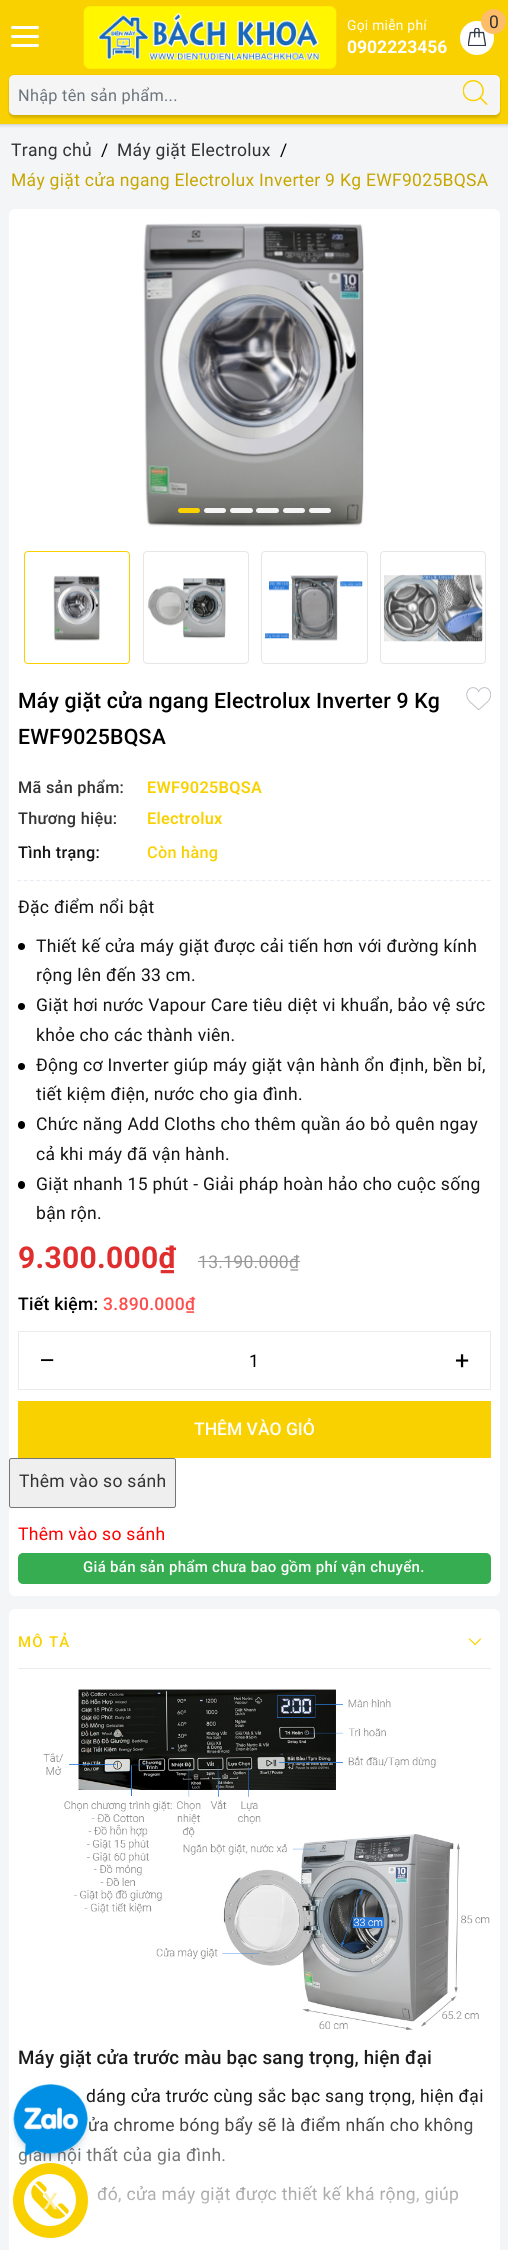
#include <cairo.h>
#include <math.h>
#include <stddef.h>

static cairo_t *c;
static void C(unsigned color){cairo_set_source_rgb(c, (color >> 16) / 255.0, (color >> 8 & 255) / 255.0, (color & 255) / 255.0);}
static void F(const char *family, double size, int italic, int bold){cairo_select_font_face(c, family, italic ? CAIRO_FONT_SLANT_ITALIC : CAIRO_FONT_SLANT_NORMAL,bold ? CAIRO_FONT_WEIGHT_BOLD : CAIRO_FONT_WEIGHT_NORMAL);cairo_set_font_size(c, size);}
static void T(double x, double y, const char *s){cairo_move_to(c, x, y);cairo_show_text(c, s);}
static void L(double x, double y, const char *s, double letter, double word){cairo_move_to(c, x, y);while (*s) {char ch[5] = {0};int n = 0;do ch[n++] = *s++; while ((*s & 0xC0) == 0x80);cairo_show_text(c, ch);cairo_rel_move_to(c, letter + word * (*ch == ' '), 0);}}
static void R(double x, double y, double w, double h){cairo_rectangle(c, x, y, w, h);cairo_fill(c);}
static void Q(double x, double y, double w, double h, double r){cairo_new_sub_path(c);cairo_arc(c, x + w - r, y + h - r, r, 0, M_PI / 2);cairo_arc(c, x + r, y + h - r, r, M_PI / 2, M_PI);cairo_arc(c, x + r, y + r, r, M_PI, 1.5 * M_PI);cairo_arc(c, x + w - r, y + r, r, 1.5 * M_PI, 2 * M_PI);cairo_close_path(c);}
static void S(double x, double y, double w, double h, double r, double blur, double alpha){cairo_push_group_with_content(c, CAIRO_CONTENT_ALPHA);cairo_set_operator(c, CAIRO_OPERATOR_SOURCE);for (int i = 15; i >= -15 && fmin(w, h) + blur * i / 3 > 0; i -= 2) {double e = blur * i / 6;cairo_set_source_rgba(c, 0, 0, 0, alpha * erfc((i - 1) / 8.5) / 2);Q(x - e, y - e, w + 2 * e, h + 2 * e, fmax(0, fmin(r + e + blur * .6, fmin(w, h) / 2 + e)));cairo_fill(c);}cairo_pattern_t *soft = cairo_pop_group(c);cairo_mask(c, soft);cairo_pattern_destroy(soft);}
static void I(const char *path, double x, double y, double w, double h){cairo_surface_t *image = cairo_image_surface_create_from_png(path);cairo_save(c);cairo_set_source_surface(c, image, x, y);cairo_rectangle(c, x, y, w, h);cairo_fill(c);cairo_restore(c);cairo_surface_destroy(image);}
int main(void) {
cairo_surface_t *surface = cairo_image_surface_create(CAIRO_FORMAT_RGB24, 508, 2250);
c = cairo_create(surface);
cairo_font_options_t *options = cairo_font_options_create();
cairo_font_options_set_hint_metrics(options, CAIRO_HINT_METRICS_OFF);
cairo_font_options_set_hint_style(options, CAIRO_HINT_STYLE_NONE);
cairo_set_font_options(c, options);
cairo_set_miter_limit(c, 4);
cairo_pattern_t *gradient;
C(0xf3f5f7);
cairo_paint(c);
C(0xfad100);
R(0,0,508,124);
cairo_save(c);
cairo_set_fill_rule(c,CAIRO_FILL_RULE_EVEN_ODD);
cairo_new_path(c);
cairo_move_to(c,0,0);
cairo_line_to(c,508,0);
cairo_line_to(c,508,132);
cairo_line_to(c,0,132);
cairo_close_path(c);
cairo_move_to(c,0,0);
cairo_line_to(c,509,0);
cairo_line_to(c,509,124);
cairo_line_to(c,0,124);
cairo_close_path(c);
cairo_clip(c);
C(0x000000);
S(0,1,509,124,0,2,.2);
cairo_restore(c);
C(0xffffff);
Q(11,26,28,3,1.5);
cairo_fill(c);
Q(11,35,28,3,1.5);
cairo_fill(c);
Q(11,44,28,3,1.5);
cairo_fill(c);
I("1.png",83,6,254,63);
F("Roboto",13.75,0,0);
L(347,30,"Gọi miễn phí",.3,0);
F("Roboto",17.5,0,1);
T(347,53,"0902223456");
cairo_new_path(c);
cairo_arc(c,477,38,17,0,2 * M_PI);
cairo_fill(c);
I("2.png",468,28,18,18);
C(0xfebd69);
cairo_arc(c,493.5,21.5,12.5,0,2 * M_PI);
cairo_fill(c);
F("Roboto",17.5,0,0);
C(0x333333);
L(489,28,"0",.3,0);
C(0x000000);
S(9,78,491,40,5,1,.14);
S(9,75,491,40,5,.5,.12);
C(0xf5f5f5);
Q(9,75,491,40,5);
cairo_fill(c);
F("Roboto",16.25,0,0);
C(0x6c757d);
L(18,101,"Nhập tên sản phẩm...",.3,0);
I("3.png",463,80,25,25);
F("Roboto",17.5,0,0);
C(0x333333);
L(11,156,"Trang chủ",.3,0);
C(0x000000);
L(101,156,"/",.3,0);
C(0x333333);
L(117,156,"Máy giặt Electrolux",.3,0);
C(0x000000);
L(280,156,"/",.3,0);
C(0xc7a600);
L(11,186,"Máy giặt cửa ngang Electrolux Inverter 9 Kg EWF9025BQSA",.3,0);
C(0xffffff);
Q(9,209,491,1387,6);
cairo_fill(c);
I("4.png",143,223,221,304);
C(0xfad100);
Q(178,508,22,5,2.5);
cairo_fill(c);
C(0xf5f5f5);
Q(204,508,22,5,2.5);
cairo_fill(c);
Q(230,508,23,5,2.5);
cairo_fill(c);
Q(256,508,23,5,2.5);
cairo_fill(c);
Q(283,508,22,5,2.5);
cairo_fill(c);
Q(309,508,22,5,2.5);
cairo_fill(c);
Q(24.5,551.5,105,112,3.5);
C(0xfad100);
cairo_set_line_width(c,1);
cairo_stroke(c);
I("5.png",53,575,47,66);
Q(143.5,551.5,105,112,3.5);
C(0xe6e6e6);
cairo_stroke(c);
I("6.png",147,578,79,61);
Q(261.5,551.5,106,112,3.5);
cairo_stroke(c);
I("7.png",265,575,98,66);
Q(380.5,551.5,105,112,3.5);
cairo_stroke(c);
I("8.png",383,574,100,68);
F("Roboto Medium",21.25,0,0);
C(0x000000);
L(18,708,"Máy giặt cửa ngang Electrolux Inverter 9 Kg",.2,0);
L(18,744,"EWF9025BQSA",.2,0);
I("9.png",466,687,25,24);
F("Roboto Medium",16.25,0,0);
C(0x333333);
L(18,793,"Mã sản phẩm:",.3,0);
F("Roboto SemiBold",16.25,0,0);
C(0xfad100);
L(147,793,"EWF9025BQSA",.3,0);
F("Roboto Medium",16.25,0,0);
C(0x333333);
L(18,824,"Thương hiệu:",.3,0);
F("Roboto SemiBold",16.25,0,0);
C(0xfad100);
L(147,824,"Electrolux",.3,0);
cairo_new_path(c);
cairo_move_to(c,17.5,880.5);
cairo_line_to(c,491,880.5);
C(0xeaebf3);
cairo_set_line_width(c,1.2);
cairo_set_dash(c,(double[]){3.75,2.51},2,0);
cairo_stroke(c);
F("Roboto Medium",16.25,0,0);
C(0x141414);
L(18,858,"Tình trạng:",.3,0);
C(0xfad100);
L(147,858,"Còn hàng",.3,0);
F("Roboto",17.5,0,0);
C(0x141414);
L(18,913,"Đặc điểm nổi bật",.3,0);
C(0x000000);
cairo_new_path(c);
cairo_arc(c,21.5,946.5,3.5,0,2 * M_PI);
cairo_fill(c);
C(0x141414);
L(36,952,"Thiết kế cửa máy giặt được cải tiến hơn với đường kính",.3,0);
L(36,981,"rộng lên đến 33 cm.",.3,0);
C(0x000000);
cairo_new_path(c);
cairo_arc(c,21.5,1006.5,3.5,0,2 * M_PI);
cairo_fill(c);
C(0x141414);
L(36,1011,"Giặt hơi nước Vapour Care tiêu diệt vi khuẩn, bảo vệ sức",.3,0);
L(36,1041,"khỏe cho các thành viên.",.3,0);
C(0x000000);
cairo_new_path(c);
cairo_arc(c,21.5,1066.5,3.5,0,2 * M_PI);
cairo_fill(c);
C(0x141414);
L(36,1071,"Động cơ Inverter giúp máy giặt vận hành ổn định, bền bỉ,",.3,0);
L(36,1100,"tiết kiệm điện, nước cho gia đình.",.3,0);
C(0x000000);
Q(18,1121,7,8,3.5);
cairo_fill(c);
C(0x141414);
L(36,1130,"Chức năng Add Cloths cho thêm quần áo bỏ quên ngay",.3,0);
L(36,1160,"cả khi máy đã vận hành.",.3,0);
C(0x000000);
Q(18,1181,7,8,3.5);
cairo_fill(c);
C(0x141414);
L(36,1190,"Giặt nhanh 15 phút - Giải pháp hoàn hảo cho cuộc sống",.3,0);
L(36,1219,"bận rộn.",.3,0);
F("Roboto",30,0,1);
C(0xe02e2e);
L(18,1268,"9.300.000₫",.3,0);
F("Roboto",17.5,0,0);
C(0x999999);
L(198,1268,"13.190.000₫",.3,0);
R(198,1261,102,1);
F("Roboto Medium",17.5,0,0);
C(0x000000);
L(18,1310,"Tiết kiệm:",.3,0);
C(0xff4c4c);
L(103,1310,"3.890.000₫",.3,0);
cairo_rectangle(c,18.5,1331.5,472,58);
C(0xebebeb);
cairo_set_line_width(c,1);
cairo_set_dash(c,NULL,0,0);
cairo_stroke(c);
F("Roboto",25,0,0);
C(0x000000);
L(39,1369,"–",.3,0);
F("Roboto",17.5,0,0);
L(249,1367,"1",.3,0);
F("Roboto",25,0,0);
L(455,1369,"+",.3,0);
C(0xfad100);
R(18,1401,473,57);
F("Roboto Medium",17.5,0,0);
C(0xffffff);
T(194,1435,"THÊM VÀO GIỎ");
C(0xefefef);
Q(9.5,1458.5,166,49,2);
cairo_fill_preserve(c);
C(0x767676);
cairo_stroke(c);
F("Roboto",17.5,0,0);
C(0x333333);
L(19,1487,"Thêm vào so sánh",.3,0);
C(0xff0000);
L(18,1540,"Thêm vào so sánh",.3,0);
C(0x28a745);
Q(18,1553,473,31,5);
cairo_fill(c);
cairo_set_source_rgba(c,1,1,1,0.07);
Q(18,1553,473,31,5);
cairo_fill(c);
F("Roboto Medium",15,0,0);
C(0xffffff);
L(83,1572,"Giá bán sản phẩm chưa bao gồm phí vận chuyển.",.3,0);
Q(9,1609,491,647,6);
cairo_fill(c);
C(0xebebeb);
R(18,1668,473,1);
C(0xfad100);
L(18,1647,"MÔ TẢ",1.25,0);
cairo_new_path(c);
cairo_move_to(c,480.5,1639);
cairo_line_to(c,475,1644.5);
cairo_line_to(c,469.5,1639);
cairo_set_line_width(c,1.2);
cairo_set_line_cap(c,CAIRO_LINE_CAP_ROUND);
cairo_stroke(c);
I("10.png",43,1689,447,341);
F("Roboto Medium",18.75,0,0);
C(0x1c1c1c);
L(18,2064,"Máy giặt cửa trước màu bạc sang trọng, hiện đại",.2,0);
F("Roboto",17.5,0,0);
C(0x141414);
L(86,2102,"dáng cửa trước cùng sắc bạc sang trọng, hiện đại",.3,0);
L(88,2131,"ửa chrome bóng bẩy sẽ là điểm nhấn cho không",.3,0);
L(18,2161,"gian nội thất của gia đình.",.3,0);
L(97,2200,"đó, cửa máy giặt được thiết kế khá rộng, giúp",.3,0);
gradient = cairo_pattern_create_linear(254,2094,254,2244);
cairo_pattern_add_color_stop_rgba(gradient,0,1,1,1,0);
cairo_pattern_add_color_stop_rgba(gradient,.33,1,1,1,.33);
cairo_pattern_add_color_stop_rgba(gradient,.83,1,1,1,.8);
cairo_pattern_add_color_stop_rgba(gradient,1,1,1,1,1);
cairo_set_source(c,gradient);
cairo_pattern_destroy(gradient);
R(18,2097,465,107);
C(0xfad100);
cairo_new_path(c);
cairo_arc(c,50.5,2200.5,37.5,0,2 * M_PI);
cairo_fill(c);
I("11.png",11,2084,79,80);
C(0xffffff);
cairo_arc(c,50,2200,26,0,2 * M_PI);
cairo_fill(c);
I("12.png",31,2181,38,38);
F("Roboto",31,0,0);
C(0xfdefa6);
cairo_save(c);
cairo_translate(c,58,2193);
cairo_rotate(c,180 * M_PI / 180);
L(0,0,"x",.3,0);
cairo_restore(c);
cairo_surface_write_to_png(surface, "o.png");
cairo_font_options_destroy(options);
cairo_destroy(c);
cairo_surface_destroy(surface);
return 0;
}
